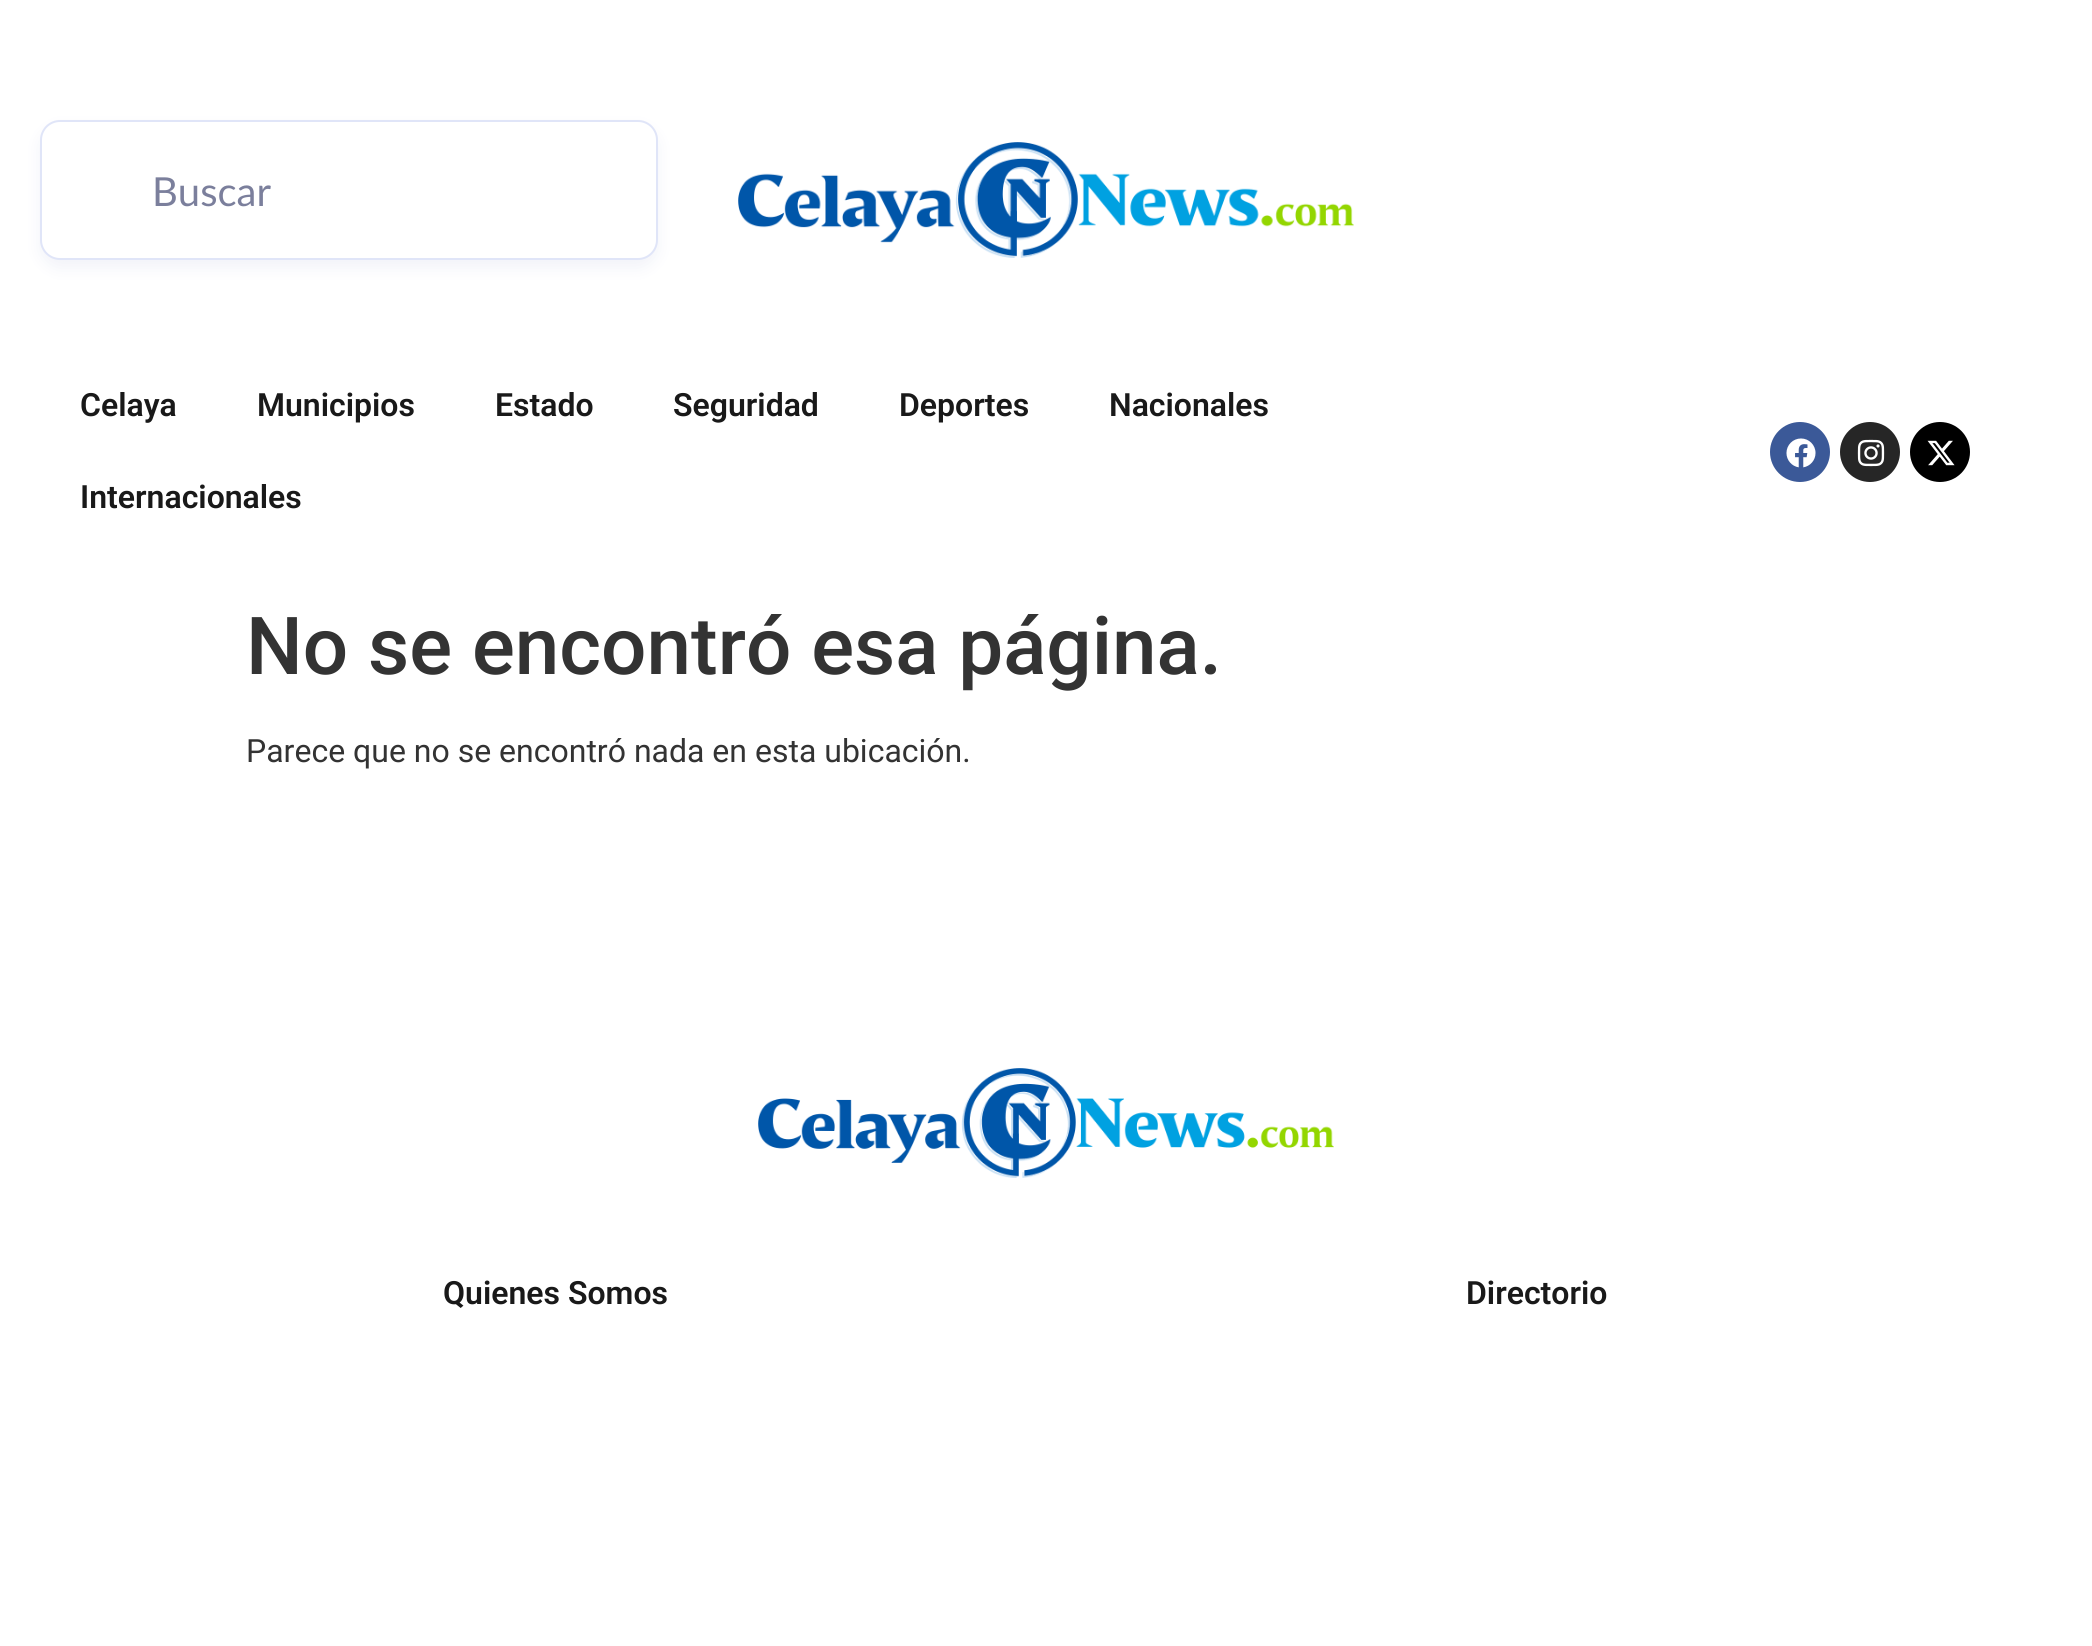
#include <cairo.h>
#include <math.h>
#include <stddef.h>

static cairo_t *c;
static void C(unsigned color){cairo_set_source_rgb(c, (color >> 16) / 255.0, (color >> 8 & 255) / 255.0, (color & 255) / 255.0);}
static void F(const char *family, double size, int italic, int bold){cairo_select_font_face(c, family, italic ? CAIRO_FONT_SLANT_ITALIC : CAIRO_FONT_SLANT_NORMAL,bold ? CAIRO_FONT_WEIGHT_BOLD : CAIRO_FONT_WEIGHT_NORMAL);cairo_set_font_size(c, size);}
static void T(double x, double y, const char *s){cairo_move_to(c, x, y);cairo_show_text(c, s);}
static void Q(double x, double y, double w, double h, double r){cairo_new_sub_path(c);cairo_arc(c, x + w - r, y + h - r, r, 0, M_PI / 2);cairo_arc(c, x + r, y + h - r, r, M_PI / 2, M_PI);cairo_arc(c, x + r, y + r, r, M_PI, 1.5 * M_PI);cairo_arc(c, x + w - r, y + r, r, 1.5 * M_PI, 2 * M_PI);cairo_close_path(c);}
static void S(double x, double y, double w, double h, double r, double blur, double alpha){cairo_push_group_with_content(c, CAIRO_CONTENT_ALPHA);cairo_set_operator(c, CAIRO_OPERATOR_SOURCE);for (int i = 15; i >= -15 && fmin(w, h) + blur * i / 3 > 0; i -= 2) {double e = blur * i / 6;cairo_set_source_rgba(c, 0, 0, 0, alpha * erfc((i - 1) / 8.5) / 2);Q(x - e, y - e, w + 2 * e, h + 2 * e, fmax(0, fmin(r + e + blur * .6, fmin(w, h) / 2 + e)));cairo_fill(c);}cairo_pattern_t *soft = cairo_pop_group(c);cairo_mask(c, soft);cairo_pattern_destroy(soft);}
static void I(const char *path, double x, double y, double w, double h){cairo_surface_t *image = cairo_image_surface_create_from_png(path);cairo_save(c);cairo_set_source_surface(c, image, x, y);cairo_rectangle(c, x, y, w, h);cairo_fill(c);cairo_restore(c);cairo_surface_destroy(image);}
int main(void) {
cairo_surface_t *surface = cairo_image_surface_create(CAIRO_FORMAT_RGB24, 2092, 1646);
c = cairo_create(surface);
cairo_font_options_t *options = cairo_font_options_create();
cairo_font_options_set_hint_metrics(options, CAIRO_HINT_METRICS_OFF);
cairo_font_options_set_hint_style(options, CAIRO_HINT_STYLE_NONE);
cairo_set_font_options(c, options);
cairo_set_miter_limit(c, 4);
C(0xffffff);
cairo_paint(c);
C(0xa5aed5);
S(40,128,618,140,20,8,.15);
C(0xffffff);
Q(41,121,616,138,19);
cairo_fill_preserve(c);
C(0xe0e5f8);
cairo_stroke(c);
F("Lato",40,0,0);
C(0x7b7f9c);
T(152,206,"Buscar");
I("1.png",738,142,616,116);
F("Roboto SemiBold",32,0,0);
C(0x191919);
T(80,416,"Celaya");
T(257,416,"Municipios");
T(495,416,"Estado");
T(673,416,"Seguridad");
T(899,416,"Deportes");
T(1109,416,"Nacionales");
T(80,508,"Internacionales");
C(0x3b5998);
cairo_new_path(c);
cairo_arc(c,1800,452,30,0,2 * M_PI);
cairo_fill(c);
I("2.png",1786,438,30,30);
C(0x262626);
cairo_arc(c,1870,452,30,0,2 * M_PI);
cairo_fill(c);
I("3.png",1857,439,28,28);
C(0x000000);
cairo_arc(c,1940,452,30,0,2 * M_PI);
cairo_fill(c);
I("4.png",1927,440,28,26);
F("Roboto Medium",80,0,0);
C(0x333333);
T(246,674,"No se encontró esa página.");
F("Roboto",32,0,0);
T(246,762,"Parece que no se encontró nada en esta ubicación.");
I("5.png",758,1068,576,110);
F("Roboto SemiBold",32,0,0);
C(0x191919);
T(443,1304,"Quienes Somos");
T(1466,1304,"Directorio");
cairo_surface_write_to_png(surface, "o.png");
cairo_font_options_destroy(options);
cairo_destroy(c);
cairo_surface_destroy(surface);
return 0;
}
